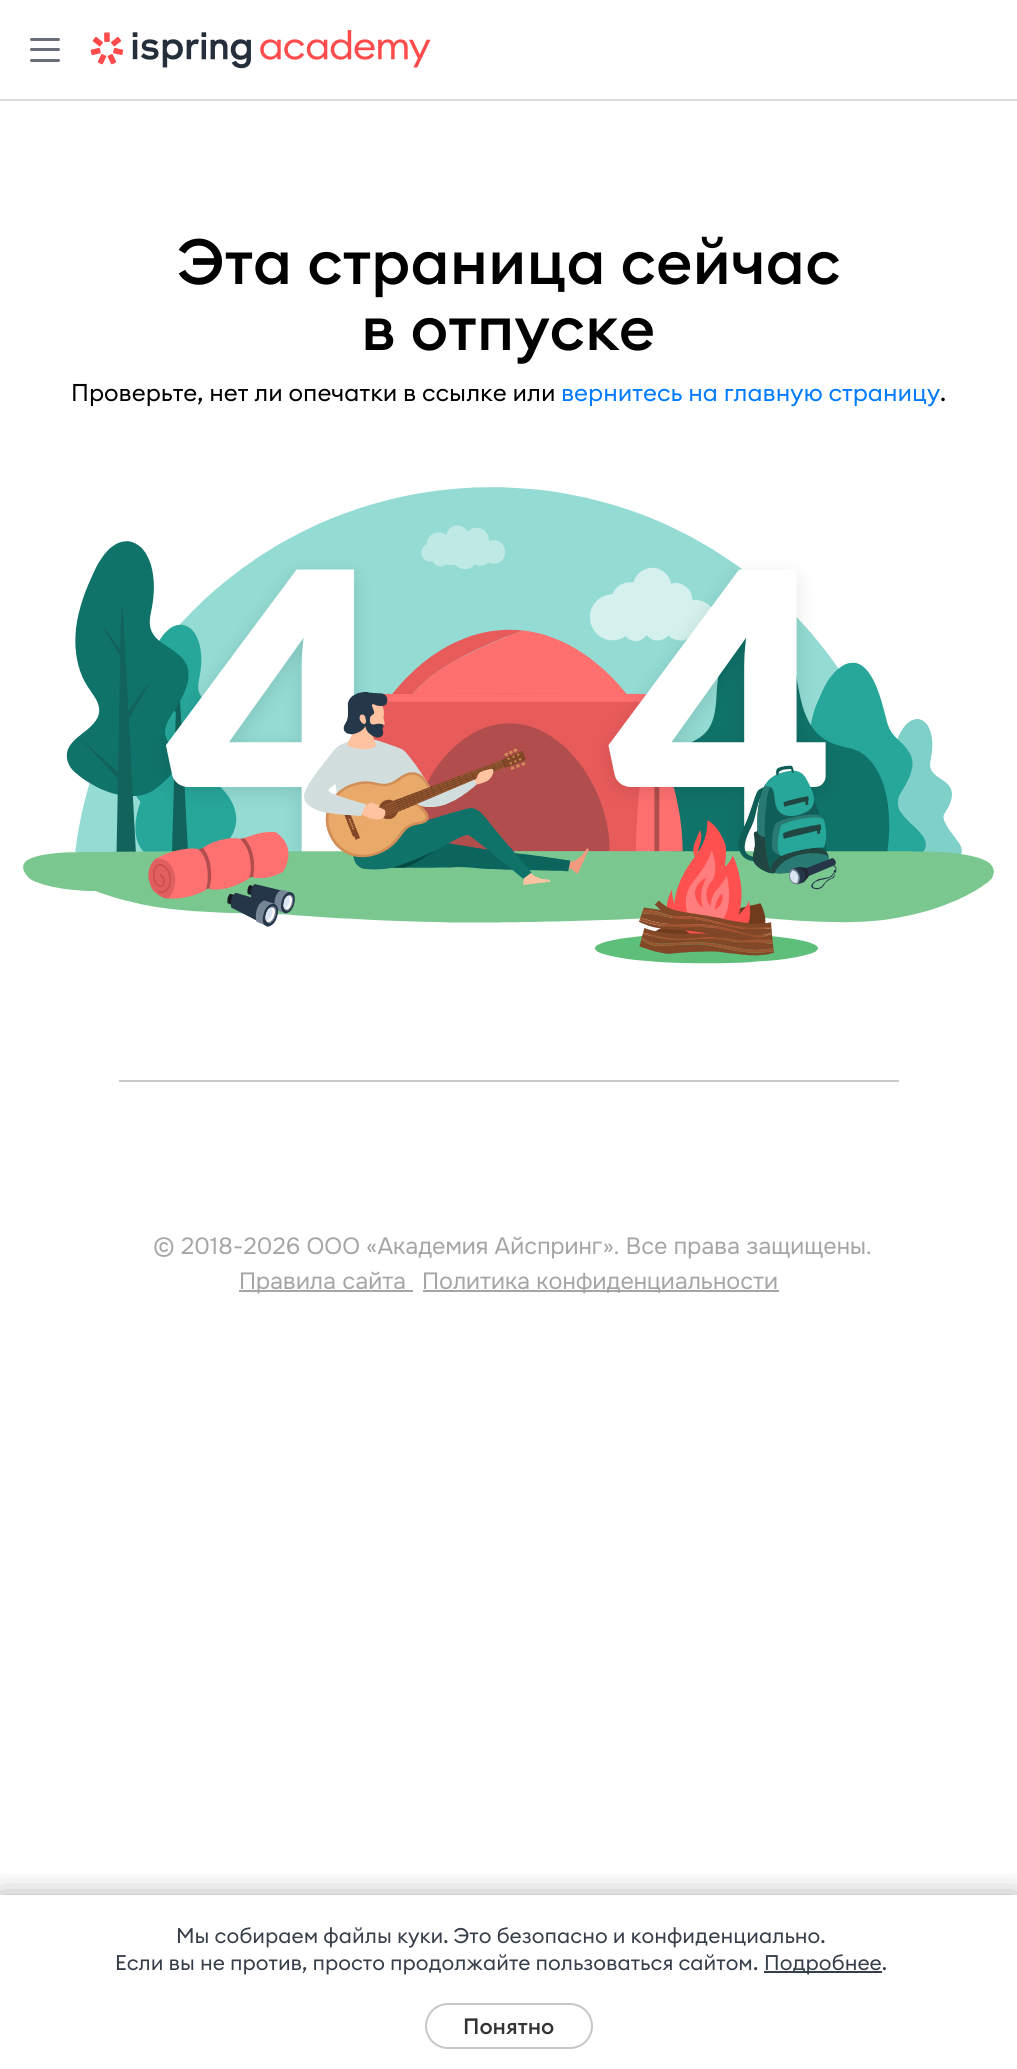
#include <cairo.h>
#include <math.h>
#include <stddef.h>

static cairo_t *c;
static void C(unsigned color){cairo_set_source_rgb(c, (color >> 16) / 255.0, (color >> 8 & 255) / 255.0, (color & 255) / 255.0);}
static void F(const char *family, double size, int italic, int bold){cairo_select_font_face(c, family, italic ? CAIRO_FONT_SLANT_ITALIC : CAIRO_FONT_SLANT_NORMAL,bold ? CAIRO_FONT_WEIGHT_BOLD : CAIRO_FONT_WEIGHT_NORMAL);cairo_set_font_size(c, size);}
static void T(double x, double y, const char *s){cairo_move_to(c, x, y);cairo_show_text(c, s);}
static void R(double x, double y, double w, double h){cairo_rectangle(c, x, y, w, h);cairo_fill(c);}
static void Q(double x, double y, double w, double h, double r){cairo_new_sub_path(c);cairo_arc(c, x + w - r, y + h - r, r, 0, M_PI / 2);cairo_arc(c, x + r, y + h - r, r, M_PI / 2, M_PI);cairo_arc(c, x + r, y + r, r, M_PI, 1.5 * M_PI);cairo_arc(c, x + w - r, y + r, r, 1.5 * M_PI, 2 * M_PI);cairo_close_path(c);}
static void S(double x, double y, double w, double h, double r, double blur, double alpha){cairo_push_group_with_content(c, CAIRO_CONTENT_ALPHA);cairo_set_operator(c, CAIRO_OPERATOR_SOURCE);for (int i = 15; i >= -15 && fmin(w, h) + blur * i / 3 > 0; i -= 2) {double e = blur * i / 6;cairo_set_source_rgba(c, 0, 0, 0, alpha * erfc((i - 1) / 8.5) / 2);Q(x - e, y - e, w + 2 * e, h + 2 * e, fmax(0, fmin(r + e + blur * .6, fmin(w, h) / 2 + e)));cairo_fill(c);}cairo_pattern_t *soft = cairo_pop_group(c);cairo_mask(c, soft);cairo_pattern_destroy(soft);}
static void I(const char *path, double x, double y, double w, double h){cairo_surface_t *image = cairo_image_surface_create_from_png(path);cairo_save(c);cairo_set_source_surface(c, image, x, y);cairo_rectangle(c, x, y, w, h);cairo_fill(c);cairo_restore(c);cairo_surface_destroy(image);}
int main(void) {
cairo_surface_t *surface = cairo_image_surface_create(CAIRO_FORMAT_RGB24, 1017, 2069);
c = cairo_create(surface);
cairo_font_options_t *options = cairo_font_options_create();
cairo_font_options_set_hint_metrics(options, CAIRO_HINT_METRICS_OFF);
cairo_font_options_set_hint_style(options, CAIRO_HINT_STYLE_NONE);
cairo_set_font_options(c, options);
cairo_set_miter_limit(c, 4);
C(0xffffff);
cairo_paint(c);
C(0xdedede);
R(0,99,1017,2);
C(0x676e78);
Q(30,48,30,3,1.5);
cairo_fill(c);
Q(30,38,30,3,1.5);
cairo_fill(c);
Q(30,59,30,3,1.5);
cairo_fill(c);
I("1.png",90,30,341,39);
F("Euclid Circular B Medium",63,0,0);
C(0x000000);
T(177,284,"Эта страница сейчас");
T(361,350,"в отпуске");
F("Euclid Circular B",24,0,0);
T(71,401,"Проверьте, нет ли опечатки в ссылке или");
C(0x007bff);
T(561,401,"вернитесь на главную страницу");
C(0x000000);
T(940,401,".");
I("2.png",23,487,971,477);
C(0xcac9c9);
R(119,1080,780,2);
F("Onest",23.4,0,0);
C(0xa6a5a5);
T(153,1254,"© 2018-2026 ООО «Академия Айспринг». Все права защищены.");
R(239,1290,174,2);
T(239,1289,"Правила сайта");
R(423,1290,356,2);
T(422,1289,"Политика конфиденциальности");
cairo_save(c);
cairo_rectangle(c,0,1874,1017,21);
cairo_clip(c);
C(0x000000);
S(0,1902,1017,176,0,16,.5);
cairo_restore(c);
F("Euclid Circular B",21,0,0);
C(0x363e49);
T(176,1943,"Мы собираем файлы куки. Это безопасно и конфиденциально.");
T(115,1970,"Если вы не против, просто продолжайте пользоваться сайтом.");
R(764,1971,118,2);
T(764,1970,"Подробнее.");
Q(426,2004,166,44,22);
C(0xc7c7c7);
cairo_stroke(c);
F("Euclid Circular B Medium",22,0,0);
C(0x333333);
T(463,2034,"Понятно");
cairo_surface_write_to_png(surface, "o.png");
cairo_font_options_destroy(options);
cairo_destroy(c);
cairo_surface_destroy(surface);
return 0;
}
